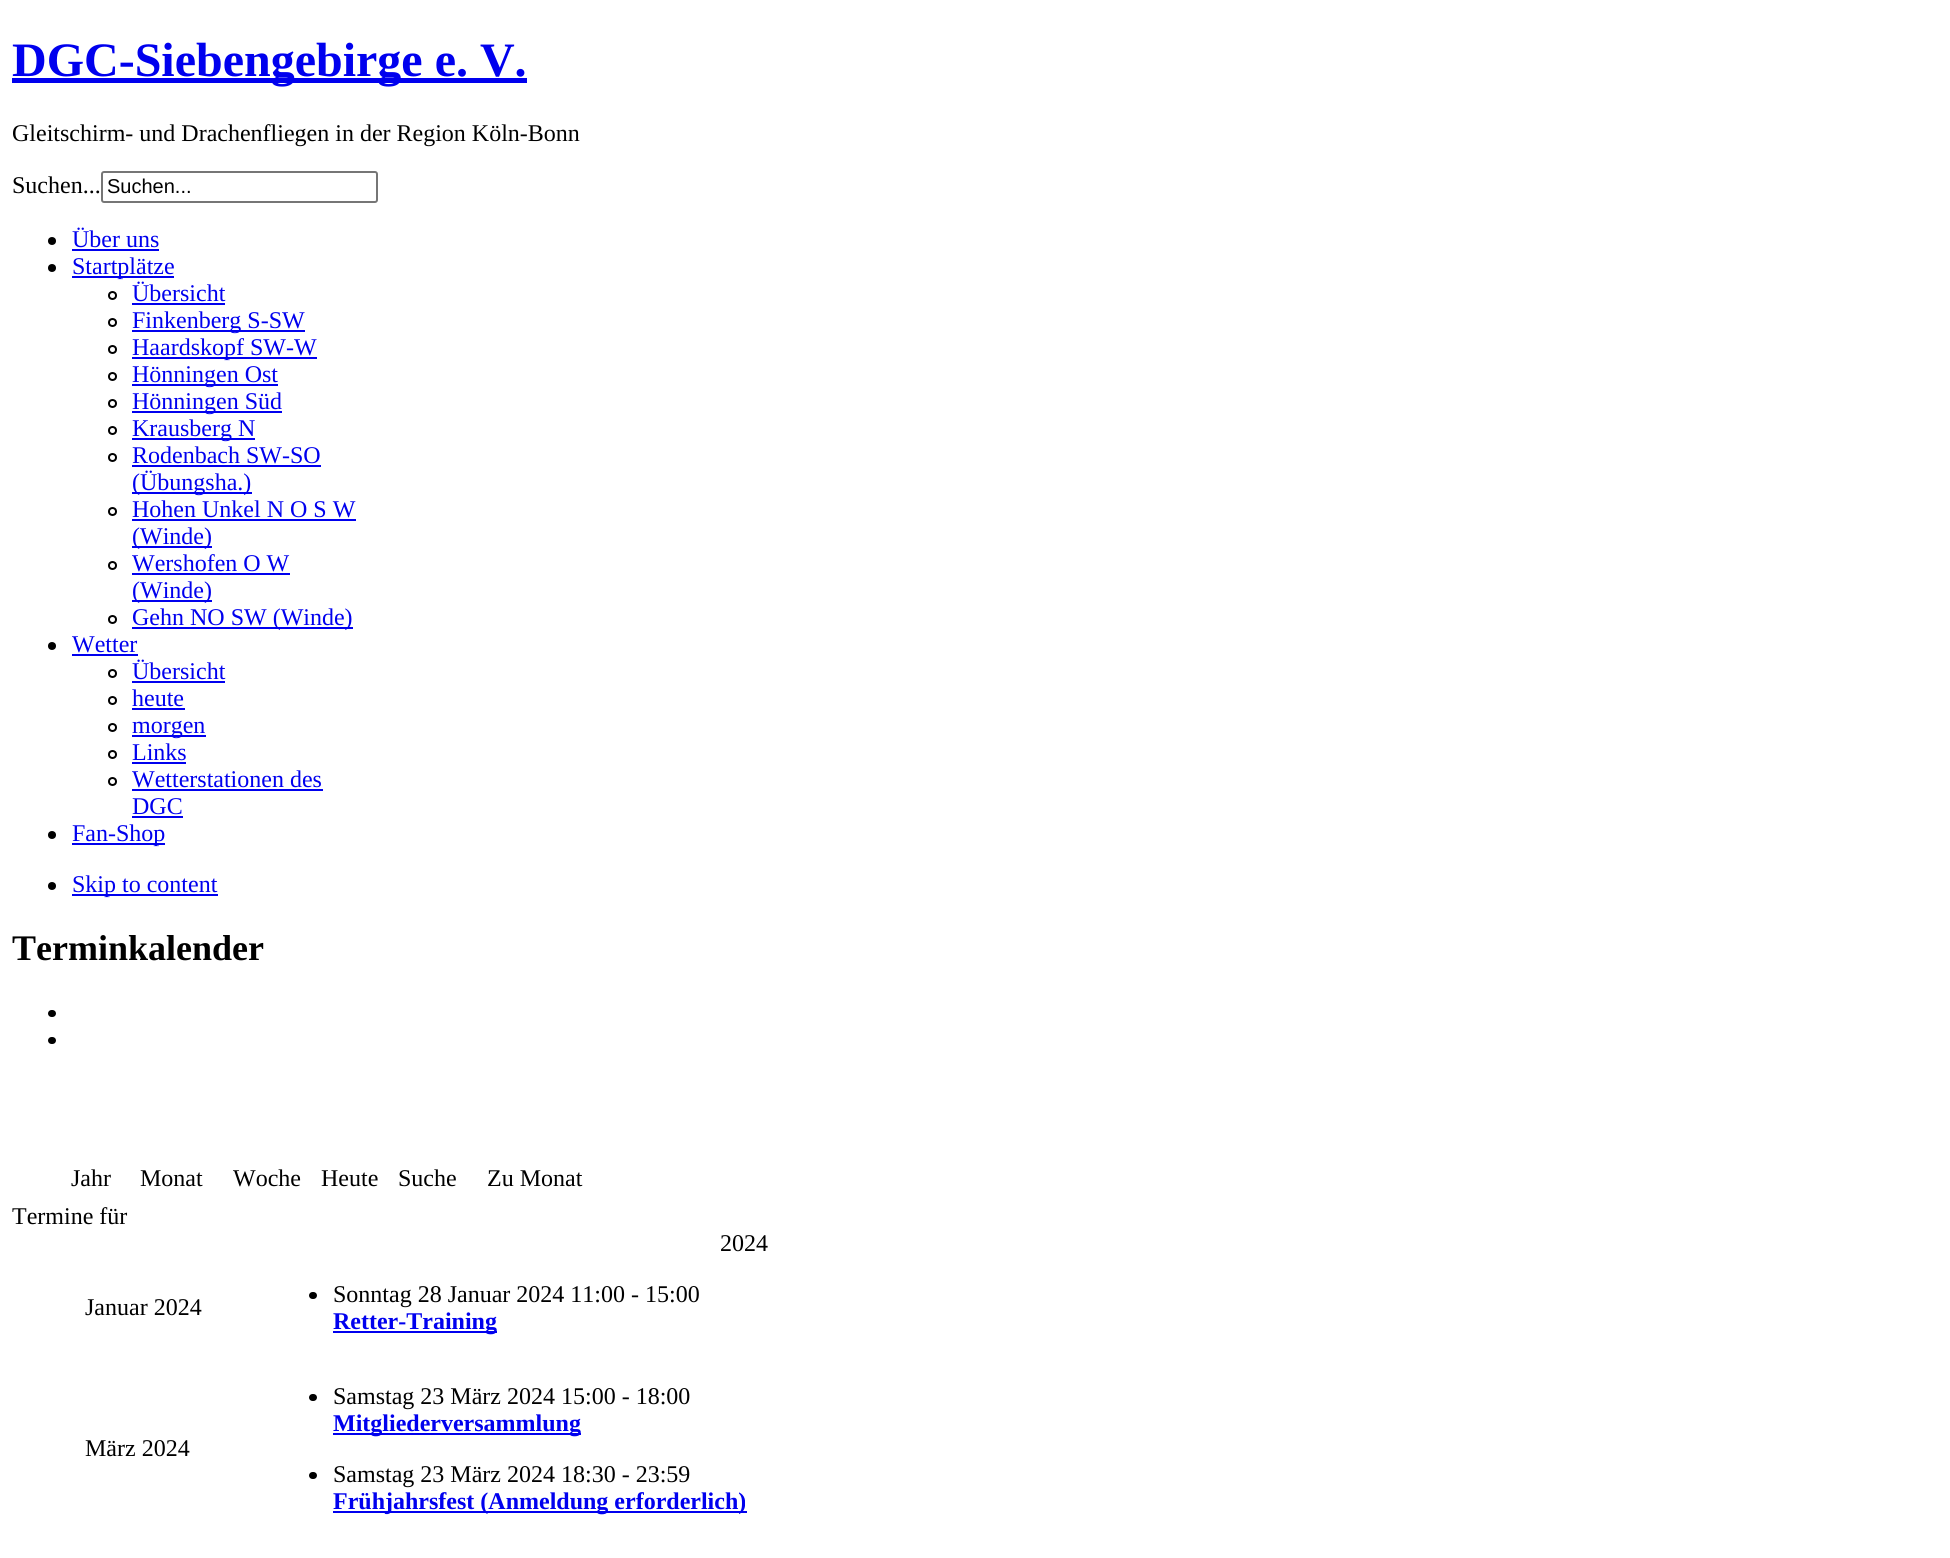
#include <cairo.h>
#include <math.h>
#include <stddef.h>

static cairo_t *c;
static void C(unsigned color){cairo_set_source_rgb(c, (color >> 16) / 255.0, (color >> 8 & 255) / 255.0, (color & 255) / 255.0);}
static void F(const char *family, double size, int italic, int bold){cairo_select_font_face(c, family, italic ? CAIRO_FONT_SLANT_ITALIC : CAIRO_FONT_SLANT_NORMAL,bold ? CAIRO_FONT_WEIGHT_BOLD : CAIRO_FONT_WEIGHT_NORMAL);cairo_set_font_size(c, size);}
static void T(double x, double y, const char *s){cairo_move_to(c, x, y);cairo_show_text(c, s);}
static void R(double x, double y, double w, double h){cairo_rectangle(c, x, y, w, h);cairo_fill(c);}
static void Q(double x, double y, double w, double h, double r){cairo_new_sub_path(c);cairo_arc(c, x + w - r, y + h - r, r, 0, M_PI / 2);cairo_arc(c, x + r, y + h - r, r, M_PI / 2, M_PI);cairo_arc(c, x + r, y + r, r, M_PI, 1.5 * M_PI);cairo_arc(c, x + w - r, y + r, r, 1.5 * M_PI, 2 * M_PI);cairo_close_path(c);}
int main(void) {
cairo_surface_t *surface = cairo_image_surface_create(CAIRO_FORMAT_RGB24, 1950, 1558);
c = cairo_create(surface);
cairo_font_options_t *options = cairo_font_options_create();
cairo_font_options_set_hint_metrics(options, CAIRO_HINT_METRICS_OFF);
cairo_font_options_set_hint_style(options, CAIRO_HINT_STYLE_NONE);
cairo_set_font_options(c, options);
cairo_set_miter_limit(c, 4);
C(0xffffff);
cairo_paint(c);
C(0x0000ee);
R(12,78,515,5);
F("Liberation Serif",48,0,1);
T(12,76,"DGC-Siebengebirge e. V.");
F("Liberation Serif",24,0,0);
C(0x000000);
T(12,141,"Gleitschirm- und Drachenfliegen in der Region Köln-Bonn");
T(12,193,"Suchen...");
Q(102,172,275,30,2);
C(0x767676);
cairo_stroke(c);
F("Liberation Sans",20,0,0);
C(0x000000);
T(107,193,"Suchen...");
cairo_new_path(c);
cairo_arc(c,52,241,4,0,2 * M_PI);
cairo_fill(c);
F("Liberation Serif",24,0,0);
C(0x0000ee);
T(72,247,"Über uns");
R(72,249,87,2);
C(0x000000);
cairo_new_path(c);
cairo_arc(c,52,268,4,0,2 * M_PI);
cairo_fill(c);
C(0x0000ee);
R(72,276,102,2);
T(72,274,"Startplätze");
cairo_new_path(c);
cairo_arc(c,112.5,295.5,3.5,0,2 * M_PI);
C(0x000000);
cairo_stroke(c);
C(0x0000ee);
T(132,301,"Übersicht");
R(132,303,93,2);
cairo_new_path(c);
cairo_arc(c,112.5,322.5,3.5,0,2 * M_PI);
C(0x000000);
cairo_stroke(c);
C(0x0000ee);
R(132,330,173,2);
T(132,328,"Finkenberg S-SW");
cairo_new_path(c);
cairo_arc(c,112.5,349.5,3.5,0,2 * M_PI);
C(0x000000);
cairo_stroke(c);
C(0x0000ee);
R(132,357,185,2);
T(132,355,"Haardskopf SW-W");
cairo_new_path(c);
cairo_arc(c,112.5,376.5,3.5,0,2 * M_PI);
C(0x000000);
cairo_stroke(c);
C(0x0000ee);
R(132,384,146,2);
T(132,382,"Hönningen Ost");
cairo_new_path(c);
cairo_arc(c,112.5,403.5,3.5,0,2 * M_PI);
C(0x000000);
cairo_stroke(c);
C(0x0000ee);
R(132,411,150,2);
T(132,409,"Hönningen Süd");
cairo_new_path(c);
cairo_arc(c,112.5,430.5,3.5,0,2 * M_PI);
C(0x000000);
cairo_stroke(c);
C(0x0000ee);
R(132,438,123,2);
T(132,436,"Krausberg N");
cairo_new_path(c);
cairo_arc(c,112.5,457.5,3.5,0,2 * M_PI);
C(0x000000);
cairo_stroke(c);
C(0x0000ee);
T(132,463,"Rodenbach SW-SO");
R(132,465,189,2);
R(132,492,120,2);
T(132,490,"(Übungsha.)");
cairo_new_path(c);
cairo_arc(c,112.5,511.5,3.5,0,2 * M_PI);
C(0x000000);
cairo_stroke(c);
C(0x0000ee);
T(132,517,"Hohen Unkel N O S W");
R(132,519,224,2);
R(132,546,80,2);
T(132,544,"(Winde)");
cairo_new_path(c);
cairo_arc(c,112.5,565.5,3.5,0,2 * M_PI);
C(0x000000);
cairo_stroke(c);
C(0x0000ee);
T(132,571,"Wershofen O W");
R(132,573,158,2);
R(132,600,80,2);
T(132,598,"(Winde)");
cairo_new_path(c);
cairo_arc(c,112.5,619.5,3.5,0,2 * M_PI);
C(0x000000);
cairo_stroke(c);
C(0x0000ee);
R(132,627,221,2);
T(132,625,"Gehn NO SW (Winde)");
C(0x000000);
cairo_new_path(c);
cairo_arc(c,52,646,4,0,2 * M_PI);
cairo_fill(c);
C(0x0000ee);
T(72,652,"Wetter");
R(72,654,66,2);
cairo_new_path(c);
cairo_arc(c,112.5,673.5,3.5,0,2 * M_PI);
C(0x000000);
cairo_stroke(c);
C(0x0000ee);
T(132,679,"Übersicht");
R(132,681,93,2);
cairo_new_path(c);
cairo_arc(c,112.5,700.5,3.5,0,2 * M_PI);
C(0x000000);
cairo_stroke(c);
C(0x0000ee);
T(132,706,"heute");
R(132,708,53,2);
cairo_new_path(c);
cairo_arc(c,112.5,727.5,3.5,0,2 * M_PI);
C(0x000000);
cairo_stroke(c);
C(0x0000ee);
R(132,735,74,2);
T(132,733,"morgen");
cairo_new_path(c);
cairo_arc(c,112.5,754.5,3.5,0,2 * M_PI);
C(0x000000);
cairo_stroke(c);
C(0x0000ee);
T(132,760,"Links");
R(132,762,54,2);
cairo_new_path(c);
cairo_arc(c,112.5,781.5,3.5,0,2 * M_PI);
C(0x000000);
cairo_stroke(c);
C(0x0000ee);
T(132,787,"Wetterstationen des");
R(132,789,191,2);
T(132,814,"DGC");
R(132,816,51,2);
C(0x000000);
cairo_new_path(c);
cairo_arc(c,52,835,4,0,2 * M_PI);
cairo_fill(c);
C(0x0000ee);
R(72,843,93,2);
T(72,841,"Fan-Shop");
C(0x000000);
cairo_new_path(c);
cairo_arc(c,52,886,4,0,2 * M_PI);
cairo_fill(c);
C(0x0000ee);
R(72,894,146,2);
T(72,892,"Skip to content");
F("Liberation Serif",36,0,1);
C(0x000000);
T(12,960,"Terminkalender");
Q(48,1010,8,7,3.5);
cairo_fill(c);
Q(48,1037,8,7,3.5);
cairo_fill(c);
F("Liberation Serif",24,0,0);
T(71,1186,"Jahr");
T(140,1186,"Monat");
T(233,1186,"Woche");
T(321,1186,"Heute");
T(398,1186,"Suche");
T(487,1186,"Zu Monat");
T(12,1224,"Termine für");
T(720,1251,"2024");
T(85,1315,"Januar 2024");
Q(309,1292,8,7,3.5);
cairo_fill(c);
T(333,1302,"Sonntag 28 Januar 2024 11:00 - 15:00");
C(0x0000ee);
R(333,1331,164,2);
F("Liberation Serif",24,0,1);
T(333,1329,"Retter-Training");
F("Liberation Serif",24,0,0);
C(0x000000);
T(85,1456,"März 2024");
Q(309,1394,8,7,3.5);
cairo_fill(c);
T(333,1404,"Samstag 23 März 2024 15:00 - 18:00");
C(0x0000ee);
R(333,1433,248,2);
F("Liberation Serif",24,0,1);
T(333,1431,"Mitgliederversammlung");
C(0x000000);
Q(309,1472,8,7,3.5);
cairo_fill(c);
F("Liberation Serif",24,0,0);
T(333,1482,"Samstag 23 März 2024 18:30 - 23:59");
C(0x0000ee);
R(333,1511,414,2);
F("Liberation Serif",24,0,1);
T(333,1509,"Frühjahrsfest (Anmeldung erforderlich)");
cairo_surface_write_to_png(surface, "o.png");
cairo_font_options_destroy(options);
cairo_destroy(c);
cairo_surface_destroy(surface);
return 0;
}
